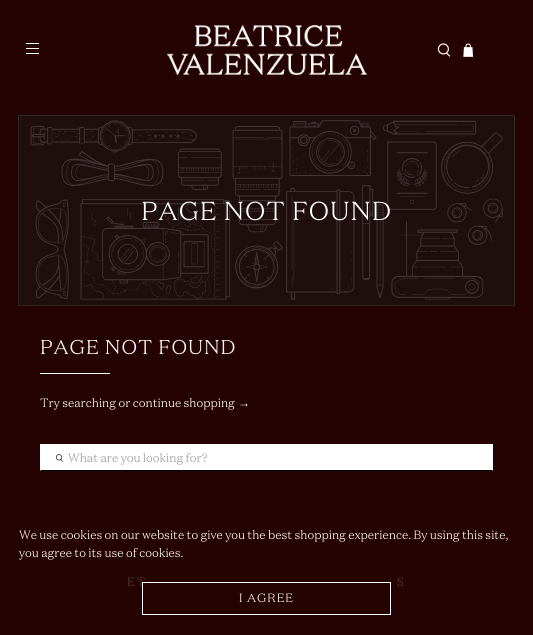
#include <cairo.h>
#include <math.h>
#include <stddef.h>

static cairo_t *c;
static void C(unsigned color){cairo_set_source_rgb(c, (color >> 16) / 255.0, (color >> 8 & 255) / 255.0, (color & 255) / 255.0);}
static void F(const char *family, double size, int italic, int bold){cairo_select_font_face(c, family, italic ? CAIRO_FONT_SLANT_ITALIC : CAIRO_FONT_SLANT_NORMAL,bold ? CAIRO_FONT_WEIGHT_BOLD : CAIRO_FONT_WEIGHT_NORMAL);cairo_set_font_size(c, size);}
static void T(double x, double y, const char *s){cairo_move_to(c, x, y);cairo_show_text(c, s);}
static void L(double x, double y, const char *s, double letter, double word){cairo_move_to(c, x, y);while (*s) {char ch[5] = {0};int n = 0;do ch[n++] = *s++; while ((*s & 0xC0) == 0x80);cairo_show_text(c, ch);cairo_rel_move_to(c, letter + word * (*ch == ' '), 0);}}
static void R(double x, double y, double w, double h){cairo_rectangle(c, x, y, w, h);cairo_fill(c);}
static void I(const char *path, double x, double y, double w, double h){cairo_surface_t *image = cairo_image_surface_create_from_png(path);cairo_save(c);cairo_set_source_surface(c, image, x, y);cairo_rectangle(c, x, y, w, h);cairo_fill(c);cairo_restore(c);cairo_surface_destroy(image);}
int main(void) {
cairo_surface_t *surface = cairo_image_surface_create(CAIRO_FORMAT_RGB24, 533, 635);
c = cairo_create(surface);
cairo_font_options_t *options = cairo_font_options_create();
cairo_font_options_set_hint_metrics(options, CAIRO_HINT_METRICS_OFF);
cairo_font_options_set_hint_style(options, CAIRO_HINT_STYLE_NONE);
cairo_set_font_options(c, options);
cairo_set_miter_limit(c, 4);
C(0x250302);
cairo_paint(c);
C(0xffffff);
R(26,43,13,1);
R(26,48,13,1);
R(26,53,13,1);
I("1.png",167,25,200,50);
I("2.png",437,43,14,14);
I("3.png",463,43,10,14);
C(0x1e0e0e);
cairo_rectangle(c,18.5,115.5,496,190);
cairo_fill_preserve(c);
C(0x312525);
cairo_set_line_width(c,1);
cairo_stroke(c);
I("4.png",30,120,473,180);
F("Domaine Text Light",26,0,0);
C(0xffffff);
L(141,220,"PAGE NOT FOUND",1,0);
F("Domaine Text Light",20,0,0);
L(40,354,"PAGE NOT FOUND",1,0);
R(40,373,70,1);
F("Domaine Text Light",12,0,0);
T(40,407,"Try searching or continue shopping");
F("Liberation Sans",12,0,0);
T(238,407,"→");
R(40,444,453,27);
I("5.png",55,454,8,8);
C(0x000000);
cairo_new_path(c);
cairo_move_to(c,493,471);
cairo_line_to(c,40,471);
cairo_line_to(c,41,470);
cairo_line_to(c,492,470);
cairo_close_path(c);
cairo_fill(c);
F("Domaine Text Light",12,0,0);
C(0x9b9b9b);
T(68,462,"What are you looking for?");
C(0xffffff);
T(19,539,"We use cookies on our website to give you the best shopping experience. By using this site,");
T(19,557,"you agree to its use of cookies.");
C(0x573d3c);
L(127,586,"ET",2,0);
cairo_rectangle(c,142.5,582.5,248,32);
C(0xffffff);
cairo_stroke(c);
L(239,602,"I AGREE",1,0);
C(0x573d3c);
L(397,586,"S",2,0);
cairo_surface_write_to_png(surface, "o.png");
cairo_font_options_destroy(options);
cairo_destroy(c);
cairo_surface_destroy(surface);
return 0;
}
